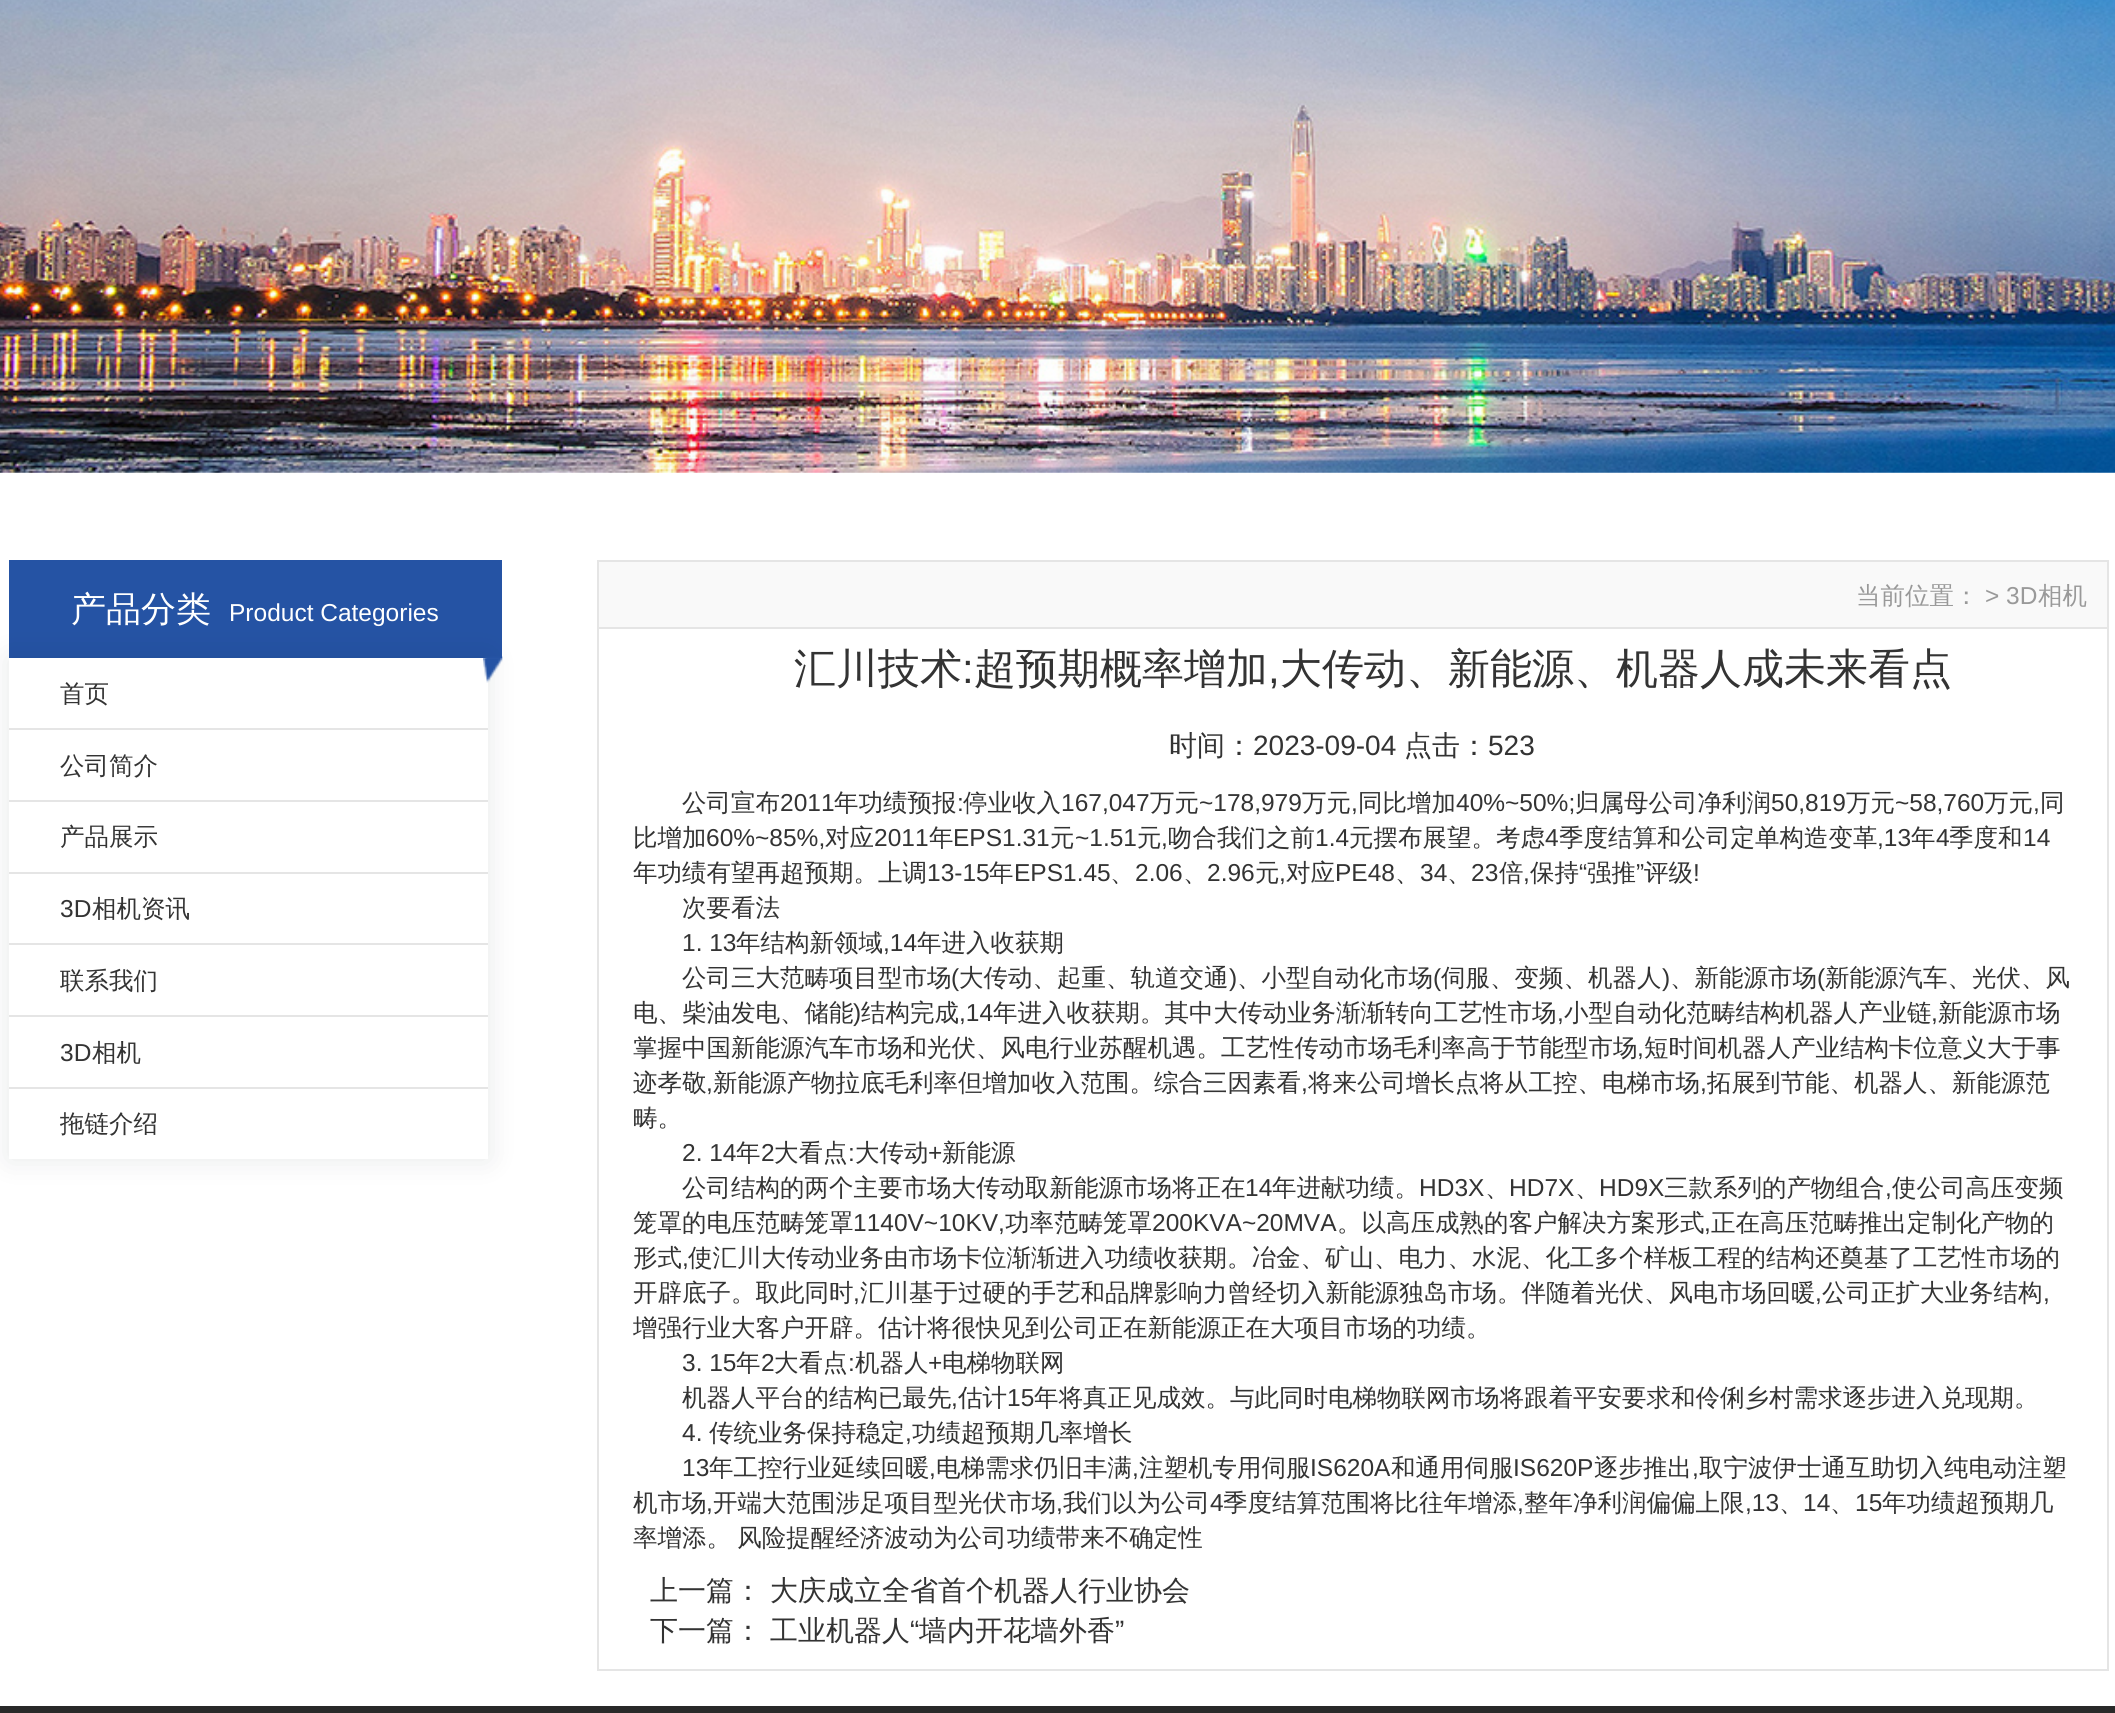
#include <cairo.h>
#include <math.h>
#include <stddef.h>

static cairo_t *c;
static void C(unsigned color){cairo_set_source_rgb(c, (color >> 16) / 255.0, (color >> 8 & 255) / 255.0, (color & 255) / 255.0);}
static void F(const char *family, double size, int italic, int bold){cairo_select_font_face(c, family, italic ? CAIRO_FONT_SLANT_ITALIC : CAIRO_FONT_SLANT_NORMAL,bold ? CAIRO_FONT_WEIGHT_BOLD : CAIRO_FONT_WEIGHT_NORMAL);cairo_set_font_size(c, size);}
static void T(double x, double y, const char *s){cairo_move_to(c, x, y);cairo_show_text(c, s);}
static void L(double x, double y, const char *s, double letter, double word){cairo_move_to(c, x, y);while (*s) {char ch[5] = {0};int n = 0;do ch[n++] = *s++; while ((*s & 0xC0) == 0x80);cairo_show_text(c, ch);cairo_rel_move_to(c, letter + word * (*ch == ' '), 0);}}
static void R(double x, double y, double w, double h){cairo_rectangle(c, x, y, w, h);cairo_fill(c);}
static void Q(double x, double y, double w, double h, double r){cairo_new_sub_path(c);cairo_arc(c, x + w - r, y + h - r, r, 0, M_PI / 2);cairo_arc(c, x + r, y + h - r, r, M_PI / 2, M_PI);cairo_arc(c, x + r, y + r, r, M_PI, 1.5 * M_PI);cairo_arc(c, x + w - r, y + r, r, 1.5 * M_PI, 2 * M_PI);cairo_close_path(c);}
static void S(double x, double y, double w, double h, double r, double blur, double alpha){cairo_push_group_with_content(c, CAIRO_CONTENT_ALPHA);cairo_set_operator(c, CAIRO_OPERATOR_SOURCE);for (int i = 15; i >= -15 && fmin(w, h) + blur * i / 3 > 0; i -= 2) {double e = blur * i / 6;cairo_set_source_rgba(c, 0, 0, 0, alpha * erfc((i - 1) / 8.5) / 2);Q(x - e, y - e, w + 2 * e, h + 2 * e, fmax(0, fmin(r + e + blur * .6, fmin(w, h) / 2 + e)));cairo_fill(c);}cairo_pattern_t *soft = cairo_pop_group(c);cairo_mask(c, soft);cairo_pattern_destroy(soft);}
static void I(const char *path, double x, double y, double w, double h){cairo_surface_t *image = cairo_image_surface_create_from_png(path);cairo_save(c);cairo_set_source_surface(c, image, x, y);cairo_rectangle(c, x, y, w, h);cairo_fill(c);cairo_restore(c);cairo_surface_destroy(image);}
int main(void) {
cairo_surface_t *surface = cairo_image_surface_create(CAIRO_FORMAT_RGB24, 2115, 1713);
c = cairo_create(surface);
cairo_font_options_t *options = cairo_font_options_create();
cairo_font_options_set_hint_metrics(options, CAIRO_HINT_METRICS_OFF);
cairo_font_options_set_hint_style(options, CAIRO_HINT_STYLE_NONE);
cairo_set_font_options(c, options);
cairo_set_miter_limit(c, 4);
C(0xffffff);
cairo_paint(c);
I("1.png",0,0,2115,473);
C(0x2553a4);
R(9,560,493,98);
cairo_save(c);
cairo_set_fill_rule(c,CAIRO_FILL_RULE_EVEN_ODD);
cairo_new_path(c);
cairo_move_to(c,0,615);
cairo_line_to(c,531,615);
cairo_line_to(c,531,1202);
cairo_line_to(c,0,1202);
cairo_close_path(c);
cairo_move_to(c,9,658);
cairo_line_to(c,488,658);
cairo_line_to(c,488,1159);
cairo_line_to(c,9,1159);
cairo_close_path(c);
cairo_clip(c);
C(0x07111b);
S(9,658,479,501,0,14,.1);
cairo_restore(c);
F("WenQuanYi Zen Hei Medium",35,0,0);
C(0xffffff);
T(71,621,"产品分类");
F("Liberation Sans",24.5,0,0);
T(229,621,"Product Categories");
I("2.png",483,656,20,27);
F("WenQuanYi Zen Hei Medium",24.5,0,0);
C(0x333333);
T(60,702,"首页");
C(0xe5e5e5);
R(9,728,479,2);
C(0x333333);
T(60,774,"公司简介");
C(0xe5e5e5);
R(9,800,479,2);
C(0x333333);
T(60,845,"产品展示");
C(0xe5e5e5);
R(9,872,479,2);
F("Liberation Sans",24.5,0,0);
C(0x333333);
T(60,917,"3D");
F("WenQuanYi Zen Hei Medium",24.5,0,0);
T(92,917,"相机资讯");
C(0xe5e5e5);
R(9,943,479,2);
C(0x333333);
T(60,989,"联系我们");
C(0xe5e5e5);
R(9,1015,479,2);
F("Liberation Sans",24.5,0,0);
C(0x333333);
T(60,1061,"3D");
F("WenQuanYi Zen Hei Medium",24.5,0,0);
T(92,1061,"相机");
C(0xe5e5e5);
R(9,1087,479,2);
C(0x333333);
T(60,1132,"拖链介绍");
cairo_rectangle(c,598,561,1510,1109);
C(0xe5e5e5);
cairo_stroke(c);
C(0xf9f9f9);
R(599,562,1508,65);
C(0xe5e5e5);
R(599,627,1508,2);
C(0x999999);
T(1856,604,"当前位置：");
F("Liberation Sans",24.5,0,0);
T(1985,604,"> 3D");
F("WenQuanYi Zen Hei Medium",24.5,0,0);
T(2038,604,"相机");
F("WenQuanYi Zen Hei Medium",42,0,0);
C(0x333333);
T(794,683,"汇川技术");
F("Liberation Sans",42,0,0);
T(962,683,":");
F("WenQuanYi Zen Hei Medium",42,0,0);
T(974,683,"超预期概率增加");
F("Liberation Sans",42,0,0);
T(1268,683,",");
F("WenQuanYi Zen Hei Medium",42,0,0);
T(1280,683,"大传动、新能源、机器人成未来看点");
F("WenQuanYi Zen Hei Medium",28,0,0);
T(1169,755,"时间：");
F("Liberation Sans",28,0,0);
T(1253,755,"2023-09-04");
F("WenQuanYi Zen Hei Medium",28,0,0);
T(1404,755,"点击：");
F("Liberation Sans",28,0,0);
T(1488,755,"523");
F("WenQuanYi Zen Hei Medium",24.5,0,0);
T(682,811,"公司宣布");
F("Liberation Sans",24.5,0,0);
T(780,811,"2011");
F("WenQuanYi Zen Hei Medium",24.5,0,0);
T(834,811,"年功绩预报");
F("Liberation Sans",24.5,0,0);
T(957,811,":");
F("WenQuanYi Zen Hei Medium",24.5,0,0);
T(963,811,"停业收入");
F("Liberation Sans",24.5,0,0);
T(1061,811,"167,047");
F("WenQuanYi Zen Hei Medium",24.5,0,0);
T(1150,811,"万元");
F("Liberation Sans",24.5,0,0);
T(1199,811,"~178,979");
F("WenQuanYi Zen Hei Medium",24.5,0,0);
T(1302,811,"万元");
F("Liberation Sans",24.5,0,0);
T(1351,811,",");
F("WenQuanYi Zen Hei Medium",24.5,0,0);
T(1358,811,"同比增加");
F("Liberation Sans",24.5,0,0);
T(1456,811,"40%~50%;");
F("WenQuanYi Zen Hei Medium",24.5,0,0);
T(1575,811,"归属母公司净利润");
F("Liberation Sans",24.5,0,0);
T(1771,811,"50,819");
F("WenQuanYi Zen Hei Medium",24.5,0,0);
T(1846,811,"万元");
F("Liberation Sans",24.5,0,0);
T(1895,811,"~58,760");
F("WenQuanYi Zen Hei Medium",24.5,0,0);
T(1984,811,"万元");
F("Liberation Sans",24.5,0,0);
T(2033,811,",");
F("WenQuanYi Zen Hei Medium",24.5,0,0);
T(2040,811,"同");
T(633,846,"比增加");
F("Liberation Sans",24.5,0,0);
T(706,846,"60%~85%,");
F("WenQuanYi Zen Hei Medium",24.5,0,0);
T(825,846,"对应");
F("Liberation Sans",24.5,0,0);
T(874,846,"2011");
F("WenQuanYi Zen Hei Medium",24.5,0,0);
T(929,846,"年");
F("Liberation Sans",24.5,0,0);
T(953,846,"EPS1.31");
F("WenQuanYi Zen Hei Medium",24.5,0,0);
T(1050,846,"元");
F("Liberation Sans",24.5,0,0);
T(1075,846,"~1.51");
F("WenQuanYi Zen Hei Medium",24.5,0,0);
T(1137,846,"元");
F("Liberation Sans",24.5,0,0);
T(1161,846,",");
F("WenQuanYi Zen Hei Medium",24.5,0,0);
T(1168,846,"吻合我们之前");
F("Liberation Sans",24.5,0,0);
T(1315,846,"1.4");
F("WenQuanYi Zen Hei Medium",24.5,0,0);
T(1349,846,"元摆布展望。考虑");
F("Liberation Sans",24.5,0,0);
T(1545,846,"4");
F("WenQuanYi Zen Hei Medium",24.5,0,0);
T(1559,846,"季度结算和公司定单构造变革");
F("Liberation Sans",24.5,0,0);
T(1877,846,",13");
F("WenQuanYi Zen Hei Medium",24.5,0,0);
T(1911,846,"年");
F("Liberation Sans",24.5,0,0);
T(1936,846,"4");
F("WenQuanYi Zen Hei Medium",24.5,0,0);
T(1949,846,"季度和");
F("Liberation Sans",24.5,0,0);
T(2023,846,"14");
F("WenQuanYi Zen Hei Medium",24.5,0,0);
T(633,881,"年功绩有望再超预期。上调");
F("Liberation Sans",24.5,0,0);
T(927,881,"13-15");
F("WenQuanYi Zen Hei Medium",24.5,0,0);
T(989,881,"年");
F("Liberation Sans",24.5,0,0);
T(1014,881,"EPS1.45");
F("WenQuanYi Zen Hei Medium",24.5,0,0);
T(1110,881,"、");
F("Liberation Sans",24.5,0,0);
T(1135,881,"2.06");
F("WenQuanYi Zen Hei Medium",24.5,0,0);
T(1183,881,"、");
F("Liberation Sans",24.5,0,0);
T(1207,881,"2.96");
F("WenQuanYi Zen Hei Medium",24.5,0,0);
T(1255,881,"元");
F("Liberation Sans",24.5,0,0);
T(1279,881,",");
F("WenQuanYi Zen Hei Medium",24.5,0,0);
T(1286,881,"对应");
F("Liberation Sans",24.5,0,0);
T(1335,881,"PE48");
F("WenQuanYi Zen Hei Medium",24.5,0,0);
T(1395,881,"、");
F("Liberation Sans",24.5,0,0);
T(1420,881,"34");
F("WenQuanYi Zen Hei Medium",24.5,0,0);
T(1447,881,"、");
F("Liberation Sans",24.5,0,0);
T(1471,881,"23");
F("WenQuanYi Zen Hei Medium",24.5,0,0);
T(1499,881,"倍");
F("Liberation Sans",24.5,0,0);
T(1523,881,",");
F("WenQuanYi Zen Hei Medium",24.5,0,0);
T(1530,881,"保持");
F("Liberation Sans",24.5,0,0);
T(1579,881,"“");
F("WenQuanYi Zen Hei Medium",24.5,0,0);
T(1587,881,"强推");
F("Liberation Sans",24.5,0,0);
T(1636,881,"”");
F("WenQuanYi Zen Hei Medium",24.5,0,0);
T(1644,881,"评级");
F("Liberation Sans",24.5,0,0);
T(1693,881,"!");
F("WenQuanYi Zen Hei Medium",24.5,0,0);
T(682,916,"次要看法");
F("Liberation Sans",24.5,0,0);
T(682,951,"1. 13");
F("WenQuanYi Zen Hei Medium",24.5,0,0);
T(736,951,"年结构新领域");
F("Liberation Sans",24.5,0,0);
T(883,951,",14");
F("WenQuanYi Zen Hei Medium",24.5,0,0);
T(917,951,"年进入收获期");
T(682,986,"公司三大范畴项目型市场");
F("Liberation Sans",24.5,0,0);
T(951,986,"(");
F("WenQuanYi Zen Hei Medium",24.5,0,0);
T(959,986,"大传动、起重、轨道交通");
F("Liberation Sans",24.5,0,0);
T(1229,986,")");
F("WenQuanYi Zen Hei Medium",24.5,0,0);
T(1237,986,"、小型自动化市场");
F("Liberation Sans",24.5,0,0);
T(1433,986,"(");
F("WenQuanYi Zen Hei Medium",24.5,0,0);
T(1441,986,"伺服、变频、机器人");
F("Liberation Sans",24.5,0,0);
T(1662,986,")");
F("WenQuanYi Zen Hei Medium",24.5,0,0);
T(1670,986,"、新能源市场");
F("Liberation Sans",24.5,0,0);
T(1817,986,"(");
F("WenQuanYi Zen Hei Medium",24.5,0,0);
T(1825,986,"新能源汽车、光伏、风");
T(633,1021,"电、柴油发电、储能");
F("Liberation Sans",24.5,0,0);
T(853,1021,")");
F("WenQuanYi Zen Hei Medium",24.5,0,0);
T(861,1021,"结构完成");
F("Liberation Sans",24.5,0,0);
T(959,1021,",14");
F("WenQuanYi Zen Hei Medium",24.5,0,0);
T(993,1021,"年进入收获期。其中大传动业务渐渐转向工艺性市场");
F("Liberation Sans",24.5,0,0);
T(1557,1021,",");
F("WenQuanYi Zen Hei Medium",24.5,0,0);
T(1564,1021,"小型自动化范畴结构机器人产业链");
F("Liberation Sans",24.5,0,0);
T(1931,1021,",");
F("WenQuanYi Zen Hei Medium",24.5,0,0);
T(1938,1021,"新能源市场");
T(633,1056,"掌握中国新能源汽车市场和光伏、风电行业苏醒机遇。工艺性传动市场毛利率高于节能型市场");
F("Liberation Sans",24.5,0,0);
T(1637,1056,",");
F("WenQuanYi Zen Hei Medium",24.5,0,0);
T(1644,1056,"短时间机器人产业结构卡位意义大于事");
T(633,1091,"迹孝敬");
F("Liberation Sans",24.5,0,0);
T(706,1091,",");
F("WenQuanYi Zen Hei Medium",24.5,0,0);
T(713,1091,"新能源产物拉底毛利率但增加收入范围。综合三因素看");
F("Liberation Sans",24.5,0,0);
T(1301,1091,",");
F("WenQuanYi Zen Hei Medium",24.5,0,0);
T(1308,1091,"将来公司增长点将从工控、电梯市场");
F("Liberation Sans",24.5,0,0);
T(1700,1091,",");
F("WenQuanYi Zen Hei Medium",24.5,0,0);
T(1707,1091,"拓展到节能、机器人、新能源范");
T(633,1126,"畴。");
F("Liberation Sans",24.5,0,0);
T(682,1161,"2. 14");
F("WenQuanYi Zen Hei Medium",24.5,0,0);
T(736,1161,"年");
F("Liberation Sans",24.5,0,0);
T(761,1161,"2");
F("WenQuanYi Zen Hei Medium",24.5,0,0);
T(774,1161,"大看点");
F("Liberation Sans",24.5,0,0);
T(848,1161,":");
F("WenQuanYi Zen Hei Medium",24.5,0,0);
T(855,1161,"大传动");
F("Liberation Sans",24.5,0,0);
T(928,1161,"+");
F("WenQuanYi Zen Hei Medium",24.5,0,0);
T(942,1161,"新能源");
T(682,1196,"公司结构的两个主要市场大传动取新能源市场将正在");
F("Liberation Sans",24.5,0,0);
T(1245,1196,"14");
F("WenQuanYi Zen Hei Medium",24.5,0,0);
T(1272,1196,"年进献功绩。");
F("Liberation Sans",24.5,0,0);
T(1419,1196,"HD3X");
F("WenQuanYi Zen Hei Medium",24.5,0,0);
T(1485,1196,"、");
F("Liberation Sans",24.5,0,0);
T(1509,1196,"HD7X");
F("WenQuanYi Zen Hei Medium",24.5,0,0);
T(1575,1196,"、");
F("Liberation Sans",24.5,0,0);
T(1599,1196,"HD9X");
F("WenQuanYi Zen Hei Medium",24.5,0,0);
T(1664,1196,"三款系列的产物组合");
F("Liberation Sans",24.5,0,0);
T(1885,1196,",");
F("WenQuanYi Zen Hei Medium",24.5,0,0);
T(1892,1196,"使公司高压变频");
T(633,1231,"笼罩的电压范畴笼罩");
F("Liberation Sans",24.5,0,0);
T(853,1231,"1140V~10KV,");
F("WenQuanYi Zen Hei Medium",24.5,0,0);
T(1005,1231,"功率范畴笼罩");
F("Liberation Sans",24.5,0,0);
T(1152,1231,"200KVA~20MVA");
F("WenQuanYi Zen Hei Medium",24.5,0,0);
T(1337,1231,"。以高压成熟的客户解决方案形式");
F("Liberation Sans",24.5,0,0);
T(1704,1231,",");
F("WenQuanYi Zen Hei Medium",24.5,0,0);
T(1711,1231,"正在高压范畴推出定制化产物的");
T(633,1266,"形式");
F("Liberation Sans",24.5,0,0);
T(682,1266,",");
F("WenQuanYi Zen Hei Medium",24.5,0,0);
T(688,1266,"使汇川大传动业务由市场卡位渐渐进入功绩收获期。冶金、矿山、电力、水泥、化工多个样板工程的结构还奠基了工艺性市场的");
T(633,1301,"开辟底子。取此同时");
F("Liberation Sans",24.5,0,0);
T(853,1301,",");
F("WenQuanYi Zen Hei Medium",24.5,0,0);
T(860,1301,"汇川基于过硬的手艺和品牌影响力曾经切入新能源独岛市场。伴随着光伏、风电市场回暖");
F("Liberation Sans",24.5,0,0);
T(1815,1301,",");
F("WenQuanYi Zen Hei Medium",24.5,0,0);
T(1822,1301,"公司正扩大业务结构");
F("Liberation Sans",24.5,0,0);
T(2043,1301,",");
F("WenQuanYi Zen Hei Medium",24.5,0,0);
T(633,1336,"增强行业大客户开辟。估计将很快见到公司正在新能源正在大项目市场的功绩。");
F("Liberation Sans",24.5,0,0);
T(682,1371,"3. 15");
F("WenQuanYi Zen Hei Medium",24.5,0,0);
T(736,1371,"年");
F("Liberation Sans",24.5,0,0);
T(761,1371,"2");
F("WenQuanYi Zen Hei Medium",24.5,0,0);
T(774,1371,"大看点");
F("Liberation Sans",24.5,0,0);
T(848,1371,":");
F("WenQuanYi Zen Hei Medium",24.5,0,0);
T(855,1371,"机器人");
F("Liberation Sans",24.5,0,0);
T(928,1371,"+");
F("WenQuanYi Zen Hei Medium",24.5,0,0);
T(942,1371,"电梯物联网");
T(682,1406,"机器人平台的结构已最先");
F("Liberation Sans",24.5,0,0);
T(951,1406,",");
F("WenQuanYi Zen Hei Medium",24.5,0,0);
T(958,1406,"估计");
F("Liberation Sans",24.5,0,0);
T(1007,1406,"15");
F("WenQuanYi Zen Hei Medium",24.5,0,0);
T(1034,1406,"年将真正见成效。与此同时电梯物联网市场将跟着平安要求和伶俐乡村需求逐步进入兑现期。");
F("Liberation Sans",24.5,0,0);
T(682,1441,"4.");
F("WenQuanYi Zen Hei Medium",24.5,0,0);
T(709,1441,"传统业务保持稳定");
F("Liberation Sans",24.5,0,0);
T(905,1441,",");
F("WenQuanYi Zen Hei Medium",24.5,0,0);
T(912,1441,"功绩超预期几率增长");
F("Liberation Sans",24.5,0,0);
T(682,1476,"13");
F("WenQuanYi Zen Hei Medium",24.5,0,0);
T(709,1476,"年工控行业延续回暖");
F("Liberation Sans",24.5,0,0);
T(929,1476,",");
F("WenQuanYi Zen Hei Medium",24.5,0,0);
T(936,1476,"电梯需求仍旧丰满");
F("Liberation Sans",24.5,0,0);
T(1132,1476,",");
F("WenQuanYi Zen Hei Medium",24.5,0,0);
T(1139,1476,"注塑机专用伺服");
F("Liberation Sans",24.5,0,0);
T(1310,1476,"IS620A");
F("WenQuanYi Zen Hei Medium",24.5,0,0);
T(1391,1476,"和通用伺服");
F("Liberation Sans",24.5,0,0);
T(1513,1476,"IS620P");
F("WenQuanYi Zen Hei Medium",24.5,0,0);
T(1594,1476,"逐步推出");
F("Liberation Sans",24.5,0,0);
T(1692,1476,",");
F("WenQuanYi Zen Hei Medium",24.5,0,0);
T(1699,1476,"取宁波伊士通互助切入纯电动注塑");
T(633,1511,"机市场");
F("Liberation Sans",24.5,0,0);
T(706,1511,",");
F("WenQuanYi Zen Hei Medium",24.5,0,0);
T(713,1511,"开端大范围涉足项目型光伏市场");
F("Liberation Sans",24.5,0,0);
T(1056,1511,",");
F("WenQuanYi Zen Hei Medium",24.5,0,0);
T(1063,1511,"我们以为公司");
F("Liberation Sans",24.5,0,0);
T(1210,1511,"4");
F("WenQuanYi Zen Hei Medium",24.5,0,0);
T(1223,1511,"季度结算范围将比往年增添");
F("Liberation Sans",24.5,0,0);
T(1517,1511,",");
F("WenQuanYi Zen Hei Medium",24.5,0,0);
T(1524,1511,"整年净利润偏偏上限");
F("Liberation Sans",24.5,0,0);
T(1745,1511,",13");
F("WenQuanYi Zen Hei Medium",24.5,0,0);
T(1779,1511,"、");
F("Liberation Sans",24.5,0,0);
T(1803,1511,"14");
F("WenQuanYi Zen Hei Medium",24.5,0,0);
T(1830,1511,"、");
F("Liberation Sans",24.5,0,0);
T(1855,1511,"15");
F("WenQuanYi Zen Hei Medium",24.5,0,0);
T(1882,1511,"年功绩超预期几");
L(633,1546,"率增添。 风险提醒经济波动为公司功绩带来不确定性",0,-1);
F("WenQuanYi Zen Hei Medium",28,0,0);
T(650,1600,"上一篇：");
T(770,1600,"大庆成立全省首个机器人行业协会");
T(650,1640,"下一篇：");
T(770,1640,"工业机器人");
F("Liberation Sans",28,0,0);
T(910,1640,"“");
F("WenQuanYi Zen Hei Medium",28,0,0);
T(919,1640,"墙内开花墙外香");
F("Liberation Sans",28,0,0);
T(1115,1640,"”");
C(0x292929);
R(0,1706,2115,7);
cairo_surface_write_to_png(surface, "o.png");
cairo_font_options_destroy(options);
cairo_destroy(c);
cairo_surface_destroy(surface);
return 0;
}
